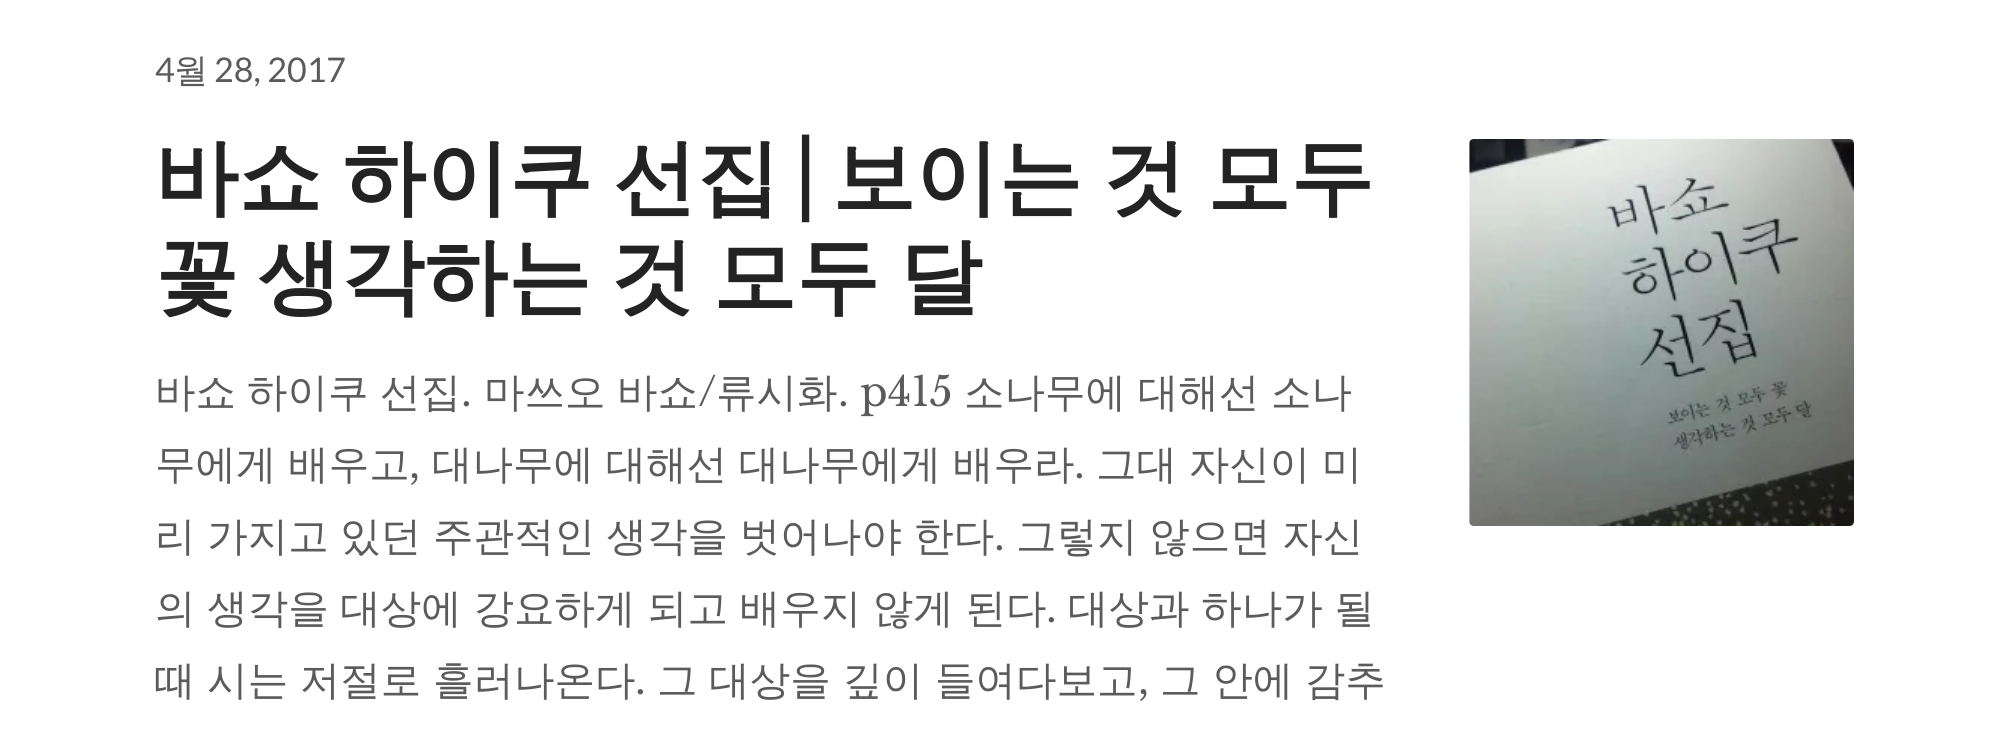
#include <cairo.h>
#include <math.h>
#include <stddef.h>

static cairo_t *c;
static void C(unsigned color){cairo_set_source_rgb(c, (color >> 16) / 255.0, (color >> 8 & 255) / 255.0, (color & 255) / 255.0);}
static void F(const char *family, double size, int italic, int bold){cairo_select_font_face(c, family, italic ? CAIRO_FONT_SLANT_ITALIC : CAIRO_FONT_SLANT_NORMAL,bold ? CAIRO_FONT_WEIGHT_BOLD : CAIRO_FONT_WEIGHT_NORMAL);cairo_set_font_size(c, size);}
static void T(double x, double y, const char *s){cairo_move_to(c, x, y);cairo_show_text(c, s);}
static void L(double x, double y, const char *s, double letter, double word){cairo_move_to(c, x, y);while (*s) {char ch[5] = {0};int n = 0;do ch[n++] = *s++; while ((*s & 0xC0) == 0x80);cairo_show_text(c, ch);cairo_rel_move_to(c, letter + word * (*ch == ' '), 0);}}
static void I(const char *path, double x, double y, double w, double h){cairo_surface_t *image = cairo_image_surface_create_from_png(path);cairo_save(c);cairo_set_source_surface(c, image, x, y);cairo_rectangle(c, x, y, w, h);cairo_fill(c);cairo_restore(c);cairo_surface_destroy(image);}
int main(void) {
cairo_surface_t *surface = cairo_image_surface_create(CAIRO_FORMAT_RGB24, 2008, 742);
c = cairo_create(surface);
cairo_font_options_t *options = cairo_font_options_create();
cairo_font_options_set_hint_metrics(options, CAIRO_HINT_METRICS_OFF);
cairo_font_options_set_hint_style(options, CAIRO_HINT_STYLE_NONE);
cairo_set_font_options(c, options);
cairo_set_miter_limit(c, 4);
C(0xffffff);
cairo_paint(c);
F("Lato",34,0,0);
C(0x5b5b5b);
T(155,82,"4");
F("WenQuanYi Zen Hei Medium",34,0,0);
T(174,82,"월");
F("Lato",34,0,0);
T(214,82,"28, 2017");
F("WenQuanYi Zen Hei",83.25,0,1);
C(0x232323);
L(155,206,"바쇼 하이쿠 선집",0,-4);
F("Playfair Display",83.25,0,1);
T(795,206,"|");
F("WenQuanYi Zen Hei",83.25,0,1);
L(832,206,"보이는 것 모두",0,-4);
L(155,305,"꽃 생각하는 것 모두 달",0,-5.5);
I("1.png",1469,139,385,387);
F("WenQuanYi Zen Hei Medium",40.5,0,0);
C(0x5b5b5b);
T(155,406,"바쇼");
T(247,406,"하이쿠");
T(380,406,"선집");
F("Libre Baskerville",40.5,0,0);
T(461,406,".");
F("WenQuanYi Zen Hei Medium",40.5,0,0);
T(484,406,"마쓰오");
T(617,406,"바쇼");
F("Libre Baskerville",40.5,0,0);
T(698,406,"/");
F("WenQuanYi Zen Hei Medium",40.5,0,0);
T(716,406,"류시화");
F("Libre Baskerville",40.5,0,0);
T(838,406,". p415");
F("WenQuanYi Zen Hei Medium",40.5,0,0);
T(964,406,"소나무에");
T(1138,406,"대해선");
T(1271,406,"소나");
L(155,478,"무에게 배우고",0,-.5);
F("Libre Baskerville",40.5,0,0);
T(409,478,",");
F("WenQuanYi Zen Hei Medium",40.5,0,0);
L(432,478,"대나무에 대해선 대나무에게 배우라",0,-.5);
F("Libre Baskerville",40.5,0,0);
T(1074,478,".");
F("WenQuanYi Zen Hei Medium",40.5,0,0);
L(1096,478,"그대 자신이 미",0,-.5);
L(155,550,"리 가지고 있던 주관적인 생각을 벗어나야 한다",0,-.5);
F("Libre Baskerville",40.5,0,0);
T(994,550,".");
F("WenQuanYi Zen Hei Medium",40.5,0,0);
L(1016,550,"그렇지 않으면 자신",0,-.5);
L(155,622,"의 생각을 대상에 강요하게 되고 배우지 않게 된다",0,-.5);
F("Libre Baskerville",40.5,0,0);
T(1046,622,".");
F("WenQuanYi Zen Hei Medium",40.5,0,0);
L(1068,622,"대상과 하나가 될",0,-.5);
L(155,694,"때 시는 저절로 흘러나온다",0,-.5);
F("Libre Baskerville",40.5,0,0);
T(635,694,".");
F("WenQuanYi Zen Hei Medium",40.5,0,0);
L(657,694,"그 대상을 깊이 들여다보고",0,-.5);
F("Libre Baskerville",40.5,0,0);
T(1138,694,",");
F("WenQuanYi Zen Hei Medium",40.5,0,0);
L(1160,694,"그 안에 감추",0,-.5);
cairo_surface_write_to_png(surface, "o.png");
cairo_font_options_destroy(options);
cairo_destroy(c);
cairo_surface_destroy(surface);
return 0;
}
